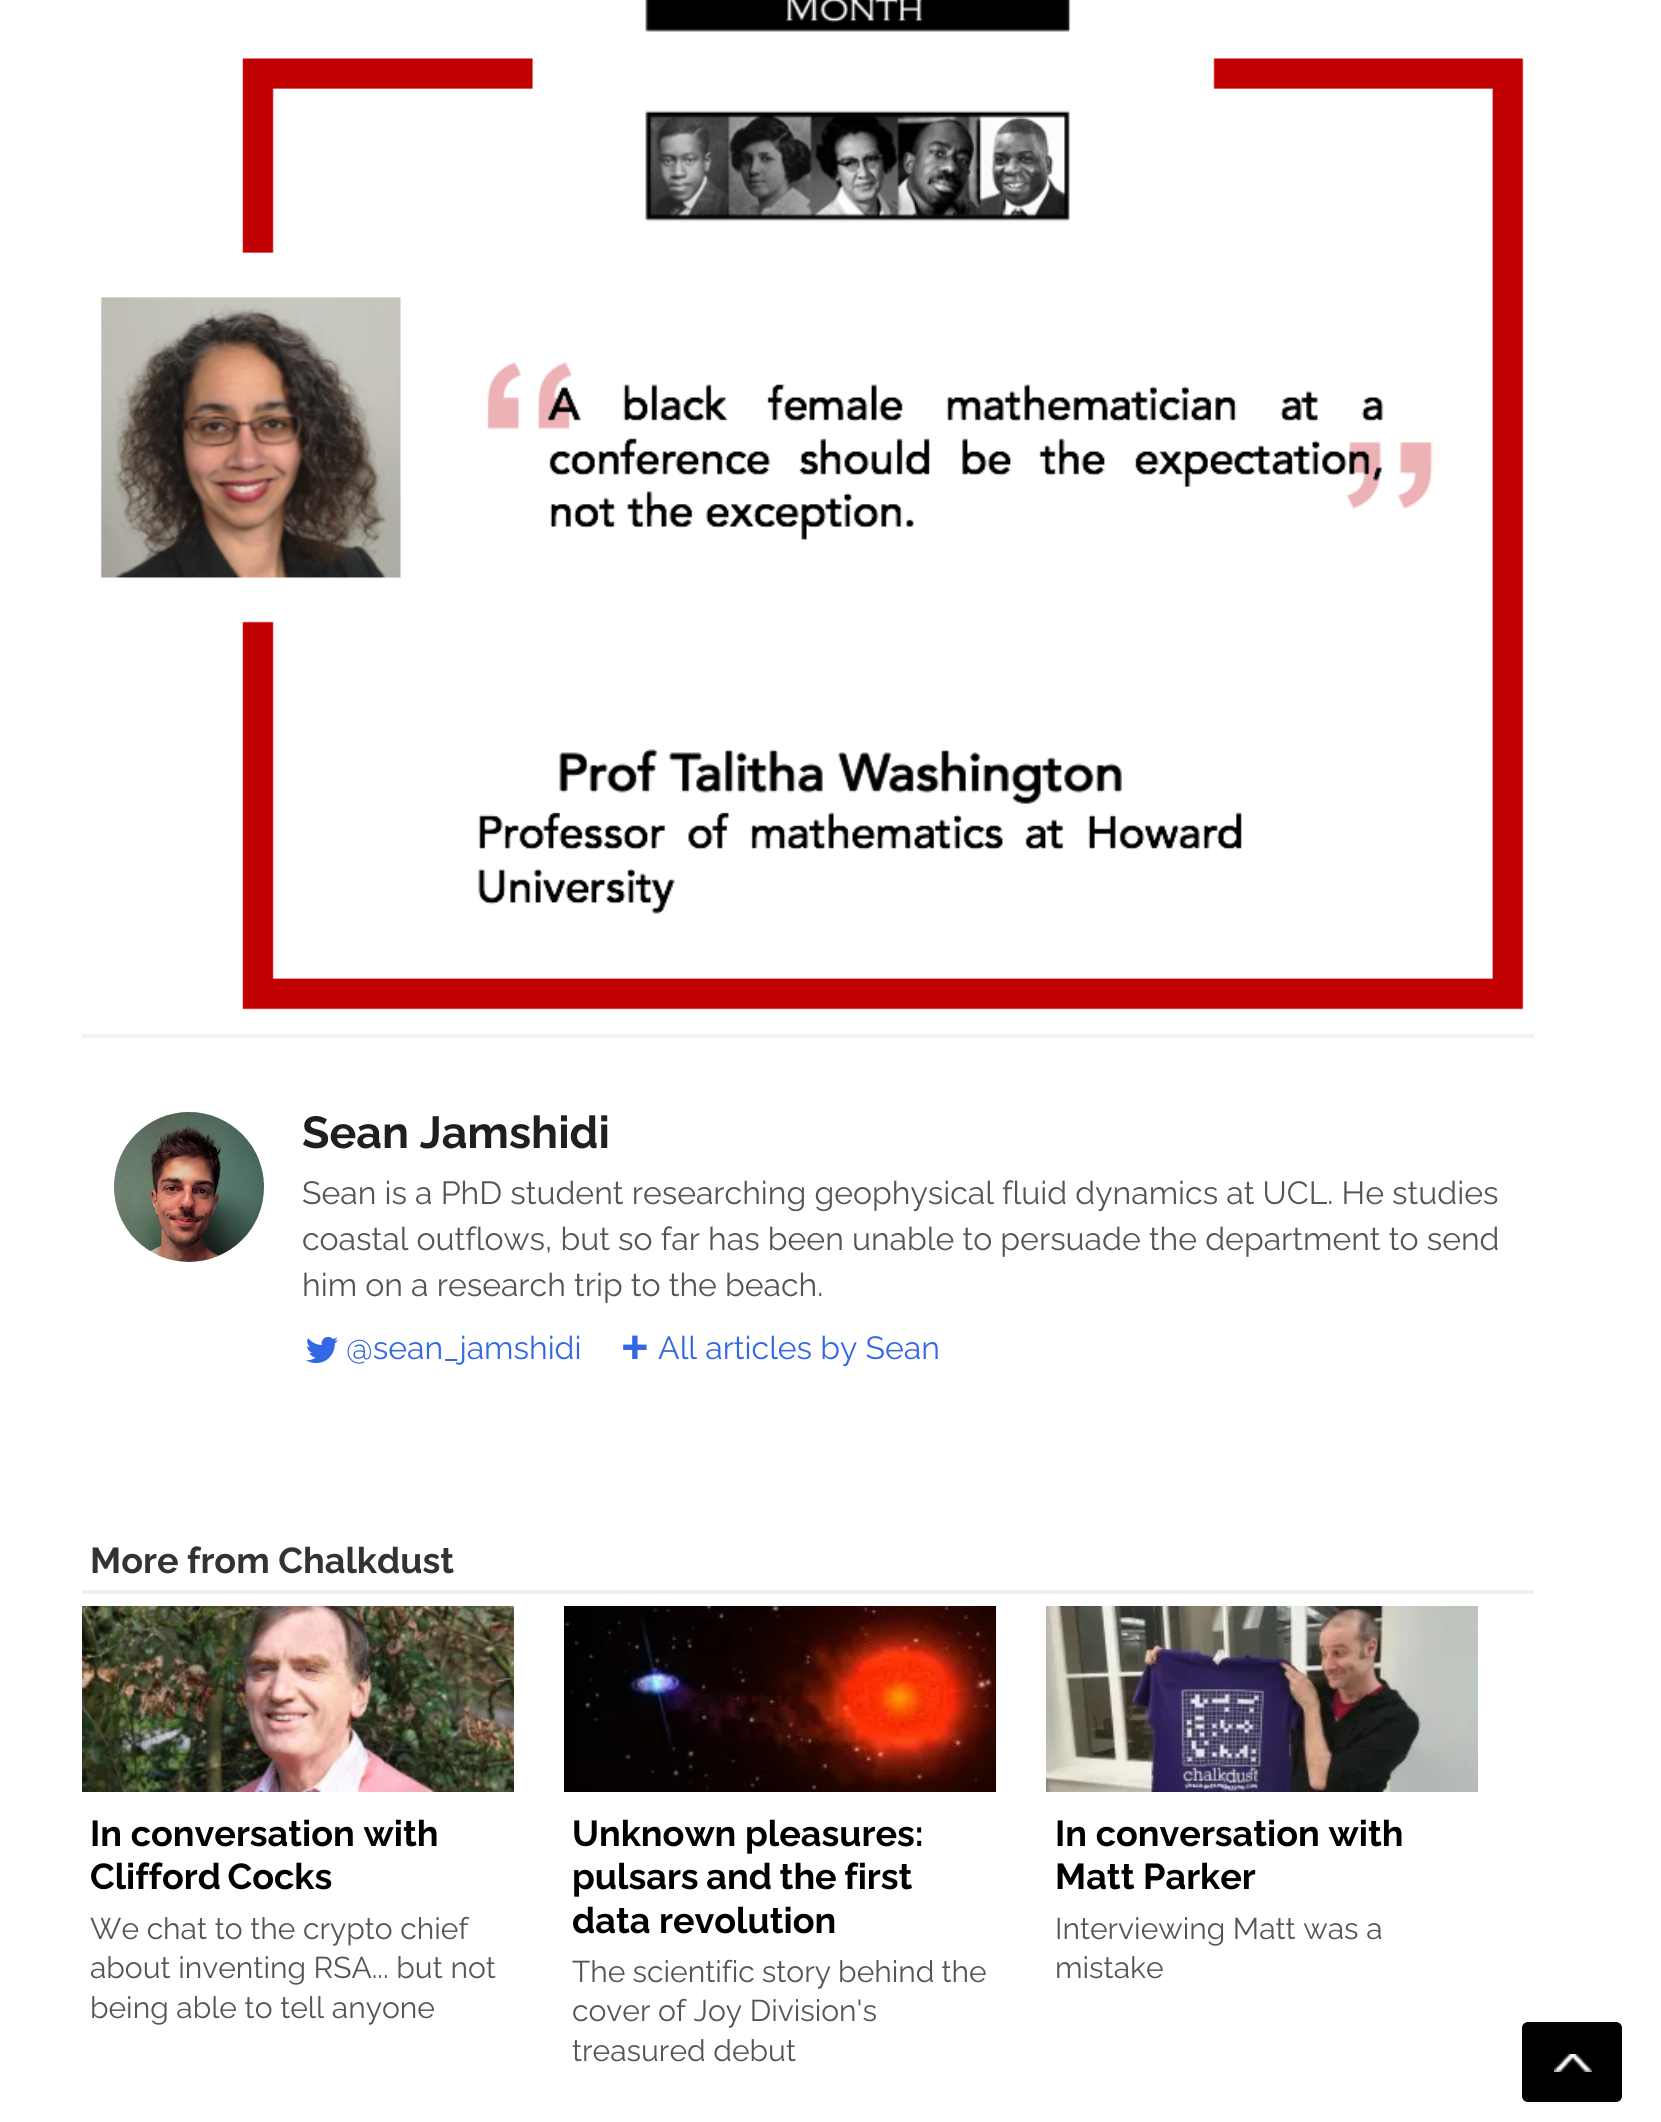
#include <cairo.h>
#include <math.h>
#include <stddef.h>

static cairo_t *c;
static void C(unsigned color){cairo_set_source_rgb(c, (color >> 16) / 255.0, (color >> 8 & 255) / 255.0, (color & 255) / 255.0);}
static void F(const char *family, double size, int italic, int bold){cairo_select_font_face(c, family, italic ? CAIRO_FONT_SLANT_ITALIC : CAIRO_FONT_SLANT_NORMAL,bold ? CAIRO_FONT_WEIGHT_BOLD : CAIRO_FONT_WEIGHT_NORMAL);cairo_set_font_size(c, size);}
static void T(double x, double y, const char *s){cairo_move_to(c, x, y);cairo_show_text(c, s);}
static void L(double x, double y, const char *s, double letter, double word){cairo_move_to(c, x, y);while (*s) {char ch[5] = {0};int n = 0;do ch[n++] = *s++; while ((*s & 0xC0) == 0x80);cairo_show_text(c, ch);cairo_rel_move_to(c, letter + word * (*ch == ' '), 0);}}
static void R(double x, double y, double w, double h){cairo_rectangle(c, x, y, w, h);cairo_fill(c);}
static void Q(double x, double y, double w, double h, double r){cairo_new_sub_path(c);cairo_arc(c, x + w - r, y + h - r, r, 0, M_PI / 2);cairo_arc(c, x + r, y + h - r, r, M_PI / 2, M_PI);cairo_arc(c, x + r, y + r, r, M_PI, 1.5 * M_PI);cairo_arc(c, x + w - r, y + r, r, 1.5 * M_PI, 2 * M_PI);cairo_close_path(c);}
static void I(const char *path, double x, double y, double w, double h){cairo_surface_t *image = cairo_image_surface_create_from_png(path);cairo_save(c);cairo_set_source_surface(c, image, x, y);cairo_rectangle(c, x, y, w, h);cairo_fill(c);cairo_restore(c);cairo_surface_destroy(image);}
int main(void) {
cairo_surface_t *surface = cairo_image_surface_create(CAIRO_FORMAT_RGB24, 1661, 2122);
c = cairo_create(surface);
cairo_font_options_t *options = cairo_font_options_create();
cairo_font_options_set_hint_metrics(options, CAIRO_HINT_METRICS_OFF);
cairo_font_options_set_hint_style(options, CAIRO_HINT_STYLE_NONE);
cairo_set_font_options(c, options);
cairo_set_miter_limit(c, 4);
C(0xffffff);
cairo_paint(c);
I("1.png",100,0,1424,1010);
C(0xf2f2f2);
R(82,1034,1452,4);
I("2.png",114,1112,150,150);
F("Raleway",44.75,0,1);
C(0x201f1f);
T(302,1148,"Sean Jamshidi");
F("Raleway",32,0,0);
C(0x555555);
T(302,1204,"Sean is a PhD student researching geophysical fluid dynamics at UCL. He studies");
T(302,1250,"coastal outflows, but so far has been unable to persuade the department to send");
T(302,1296,"him on a research trip to the beach.");
I("3.png",306,1336,32,28);
C(0x3467e6);
T(346,1359,"@sean_jamshidi");
I("4.png",623,1335,24,24);
T(658,1359,"All articles by Sean");
C(0xf2f2f2);
R(82,1590,1452,4);
F("Raleway",36,0,1);
C(0x333333);
T(90,1573,"More from Chalkdust");
I("5.png",82,1606,432,186);
C(0x000000);
T(90,1846,"In conversation with");
L(90,1889,"Clifford Cocks",0,-2);
F("Raleway",30,0,0);
C(0x555555);
T(90,1939,"We chat to the crypto chief");
T(90,1978,"about inventing RSA... but not");
T(90,2018,"being able to tell anyone");
I("6.png",564,1606,432,186);
F("Raleway",36,0,1);
C(0x000000);
T(572,1846,"Unknown pleasures:");
L(572,1889,"pulsars and the first",0,-1);
T(572,1933,"data revolution");
F("Raleway",30,0,0);
C(0x555555);
L(572,1982,"The scientific story behind the",0,-.5);
T(572,2021,"cover of Joy Division's");
T(572,2061,"treasured debut");
I("7.png",1046,1606,432,186);
F("Raleway",36,0,1);
C(0x000000);
T(1055,1846,"In conversation with");
T(1055,1889,"Matt Parker");
F("Raleway",30,0,0);
C(0x555555);
T(1055,1939,"Interviewing Matt was a");
T(1055,1978,"mistake");
C(0x000000);
Q(1522,2022,100,80,6);
cairo_fill(c);
I("8.png",1554,2054,38,18);
cairo_surface_write_to_png(surface, "o.png");
cairo_font_options_destroy(options);
cairo_destroy(c);
cairo_surface_destroy(surface);
return 0;
}
